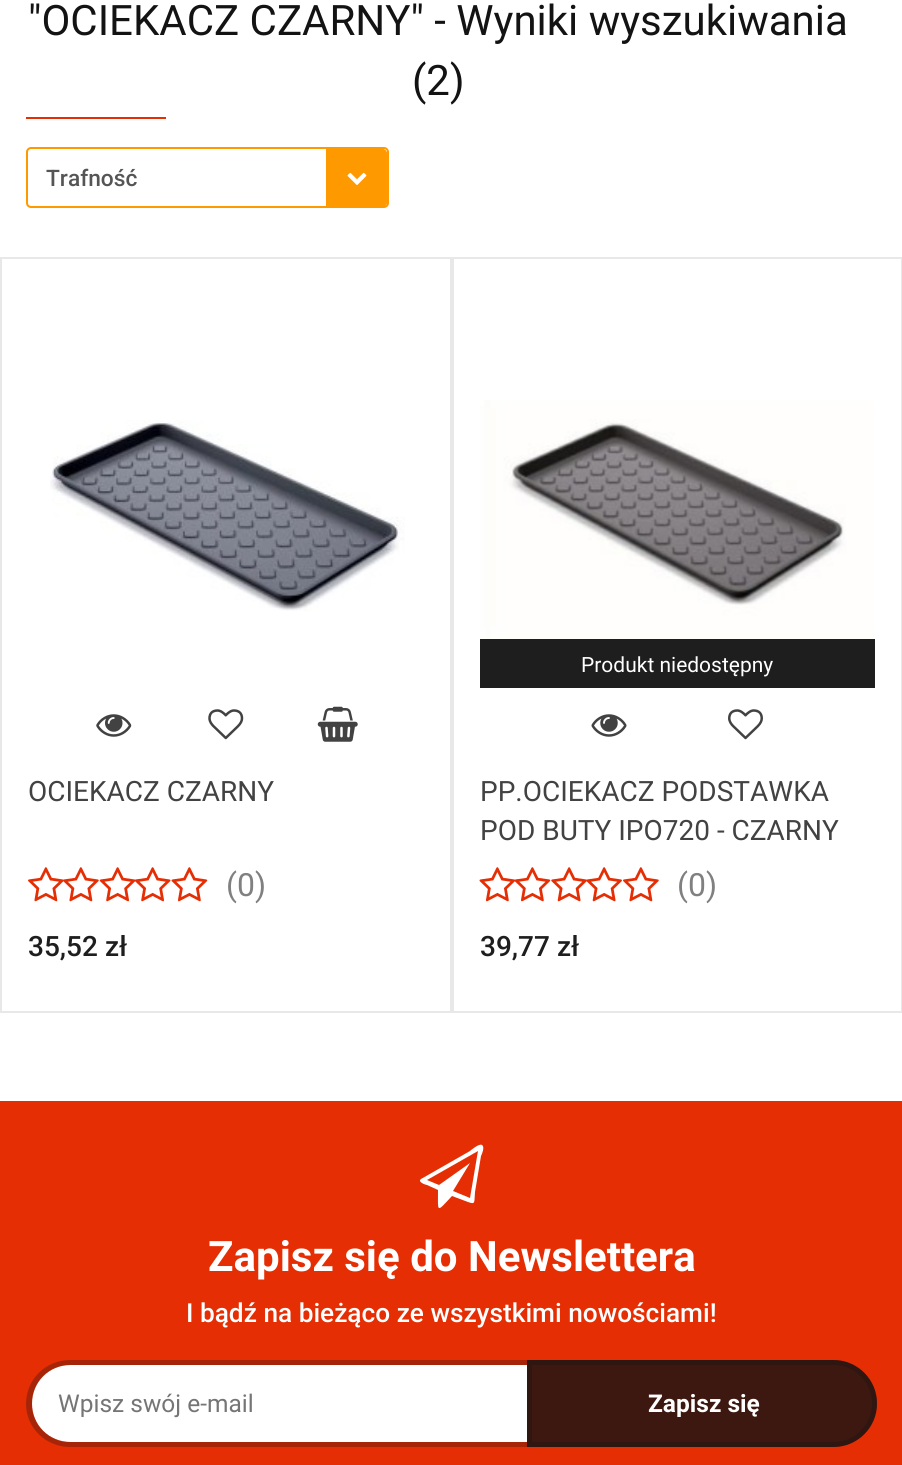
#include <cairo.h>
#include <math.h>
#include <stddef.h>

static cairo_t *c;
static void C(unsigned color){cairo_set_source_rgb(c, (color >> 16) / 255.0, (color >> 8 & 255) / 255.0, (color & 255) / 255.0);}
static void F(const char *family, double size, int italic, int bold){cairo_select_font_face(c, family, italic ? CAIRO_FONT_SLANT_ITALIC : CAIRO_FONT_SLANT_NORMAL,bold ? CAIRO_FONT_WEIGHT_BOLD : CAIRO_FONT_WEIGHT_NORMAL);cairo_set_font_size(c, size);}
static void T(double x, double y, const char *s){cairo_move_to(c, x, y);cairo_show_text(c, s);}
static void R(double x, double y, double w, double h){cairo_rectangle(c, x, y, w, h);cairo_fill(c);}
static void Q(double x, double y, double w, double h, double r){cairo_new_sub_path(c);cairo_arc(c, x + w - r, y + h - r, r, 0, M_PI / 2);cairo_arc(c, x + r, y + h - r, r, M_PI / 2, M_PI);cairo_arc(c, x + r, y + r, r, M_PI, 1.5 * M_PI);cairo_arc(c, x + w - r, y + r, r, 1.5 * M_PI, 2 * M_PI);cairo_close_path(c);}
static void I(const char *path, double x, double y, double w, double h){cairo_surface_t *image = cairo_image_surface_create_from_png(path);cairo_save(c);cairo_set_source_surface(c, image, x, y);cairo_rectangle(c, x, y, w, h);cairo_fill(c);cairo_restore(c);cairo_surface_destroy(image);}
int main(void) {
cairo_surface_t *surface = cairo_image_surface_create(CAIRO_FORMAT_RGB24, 902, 1465);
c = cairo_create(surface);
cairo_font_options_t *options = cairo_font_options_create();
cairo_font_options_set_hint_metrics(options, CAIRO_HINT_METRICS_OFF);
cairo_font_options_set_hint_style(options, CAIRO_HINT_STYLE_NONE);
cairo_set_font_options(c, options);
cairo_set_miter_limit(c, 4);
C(0xffffff);
cairo_paint(c);
F("Roboto",42,0,0);
C(0x131313);
T(28,35,"\"OCIEKACZ CZARNY\" - Wyniki wyszukiwania");
T(412,95,"(2)");
C(0xe62e04);
R(26,117,140,2);
Q(27,148,361,59,4);
C(0xff9900);
cairo_stroke(c);
F("Roboto Medium",22.75,0,0);
C(0x555555);
T(46,186,"Trafność");
C(0xff9900);
cairo_new_path(c);
cairo_move_to(c,326,149);
cairo_line_to(c,383,149);
cairo_curve_to(c,385,149,387,151,387,153);
cairo_line_to(c,387,203);
cairo_curve_to(c,387,205,385,207,383,207);
cairo_line_to(c,326,207);
cairo_close_path(c);
cairo_fill(c);
I("1.png",347,172,20,13);
cairo_rectangle(c,1,258,450,754);
C(0xe8e8e8);
cairo_stroke(c);
I("2.png",50,420,355,191);
I("3.png",96,714,36,23);
I("4.png",208,709,36,31);
I("5.png",317,706,41,36);
F("Roboto",28,0,0);
C(0x424242);
T(28,801,"OCIEKACZ CZARNY");
I("6.png",28,867,36,35);
I("7.png",63,867,36,35);
I("8.png",99,867,37,35);
I("9.png",135,867,36,35);
I("10.png",171,867,37,35);
F("Roboto",32,0,0);
C(0x808080);
T(226,896,"(0)");
F("Roboto Medium",28,0,0);
C(0x1e1e1e);
T(28,956,"35,52 zł");
cairo_rectangle(c,453,258,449,754);
C(0xe8e8e8);
cairo_stroke(c);
I("11.png",480,400,394,239);
C(0x1e1e1e);
R(480,639,395,49);
F("Roboto",21,0,0);
C(0xffffff);
T(581,672,"Produkt niedostępny");
I("12.png",591,714,36,23);
I("13.png",728,709,35,31);
F("Roboto",28,0,0);
C(0x424242);
T(480,801,"PP.OCIEKACZ PODSTAWKA");
T(480,840,"POD BUTY IPO720 - CZARNY");
I("14.png",479,867,36,35);
I("15.png",514,867,37,35);
I("16.png",551,867,36,35);
I("17.png",586,867,36,35);
I("18.png",623,867,36,35);
F("Roboto",32,0,0);
C(0x808080);
T(677,896,"(0)");
F("Roboto Medium",28,0,0);
C(0x1e1e1e);
T(480,956,"39,77 zł");
C(0xe62e04);
R(0,1101,902,364);
C(0xffffff);
cairo_new_path(c);
cairo_move_to(c,482,1145);
cairo_curve_to(c,485,1147,482,1154,481,1156);
cairo_line_to(c,475,1192);
cairo_curve_to(c,474,1202,476,1205,468,1202);
cairo_line_to(c,452,1196);
cairo_curve_to(c,436,1213,438,1213,438,1190);
cairo_line_to(c,427,1185);
cairo_curve_to(c,426,1185,417,1182,421,1179);
cairo_line_to(c,470,1151);
cairo_curve_to(c,470,1151,479,1143,482,1145);
cairo_close_path(c);
cairo_move_to(c,470,1198);
cairo_line_to(c,478,1151);
cairo_line_to(c,427,1180);
cairo_line_to(c,439,1185);
cairo_line_to(c,470,1163);
cairo_line_to(c,453,1191);
cairo_close_path(c);
cairo_fill(c);
F("Roboto",42,0,1);
T(208,1271,"Zapisz się do Newslettera");
F("Roboto Medium",26.25,0,0);
T(186,1322,"I bądź na bieżąco ze wszystkimi nowościami!");
cairo_new_path(c);
cairo_move_to(c,70.5,1365);
cairo_line_to(c,527,1365);
cairo_line_to(c,527,1442);
cairo_line_to(c,70.5,1442);
cairo_curve_to(c,49,1442,32,1425,32,1403.5);
cairo_curve_to(c,32,1382,49,1365,70.5,1365);
cairo_close_path(c);
cairo_fill(c);
cairo_set_source_rgba(c,0.075,0.075,0.075,0.3);
cairo_set_fill_rule(c,CAIRO_FILL_RULE_EVEN_ODD);
cairo_new_path(c);
cairo_move_to(c,70,1360);
cairo_line_to(c,527,1360);
cairo_line_to(c,527,1447);
cairo_line_to(c,70,1447);
cairo_curve_to(c,46,1447,26,1428,26,1404);
cairo_curve_to(c,26,1379,46,1360,70,1360);
cairo_close_path(c);
cairo_move_to(c,70,1365);
cairo_line_to(c,527,1365);
cairo_line_to(c,527,1442);
cairo_line_to(c,70,1442);
cairo_curve_to(c,49,1442,32,1425,32,1404);
cairo_curve_to(c,32,1382,49,1365,70,1365);
cairo_close_path(c);
cairo_fill(c);
F("Roboto",24.5,0,0);
C(0x757575);
T(58,1412,"Wpisz swój e-mail");
C(0x3d1810);
cairo_new_path(c);
cairo_move_to(c,527,1360);
cairo_line_to(c,833.5,1360);
cairo_curve_to(c,857.5,1360,877,1379.5,877,1403.5);
cairo_curve_to(c,877,1427.5,857.5,1447,833.5,1447);
cairo_line_to(c,527,1447);
cairo_close_path(c);
cairo_fill(c);
cairo_new_path(c);
cairo_move_to(c,529.5,1362.5);
cairo_line_to(c,833.5,1362.5);
cairo_curve_to(c,856,1362.5,874.5,1381,874.5,1403.5);
cairo_curve_to(c,874.5,1426,856,1444.5,833.5,1444.5);
cairo_line_to(c,529.5,1444.5);
cairo_close_path(c);
cairo_set_source_rgba(c,0.075,0.075,0.075,0.3);
cairo_set_line_width(c,5);
cairo_stroke(c);
F("Roboto",24.5,0,1);
C(0xffffff);
T(648,1412,"Zapisz się");
cairo_surface_write_to_png(surface, "o.png");
cairo_font_options_destroy(options);
cairo_destroy(c);
cairo_surface_destroy(surface);
return 0;
}
